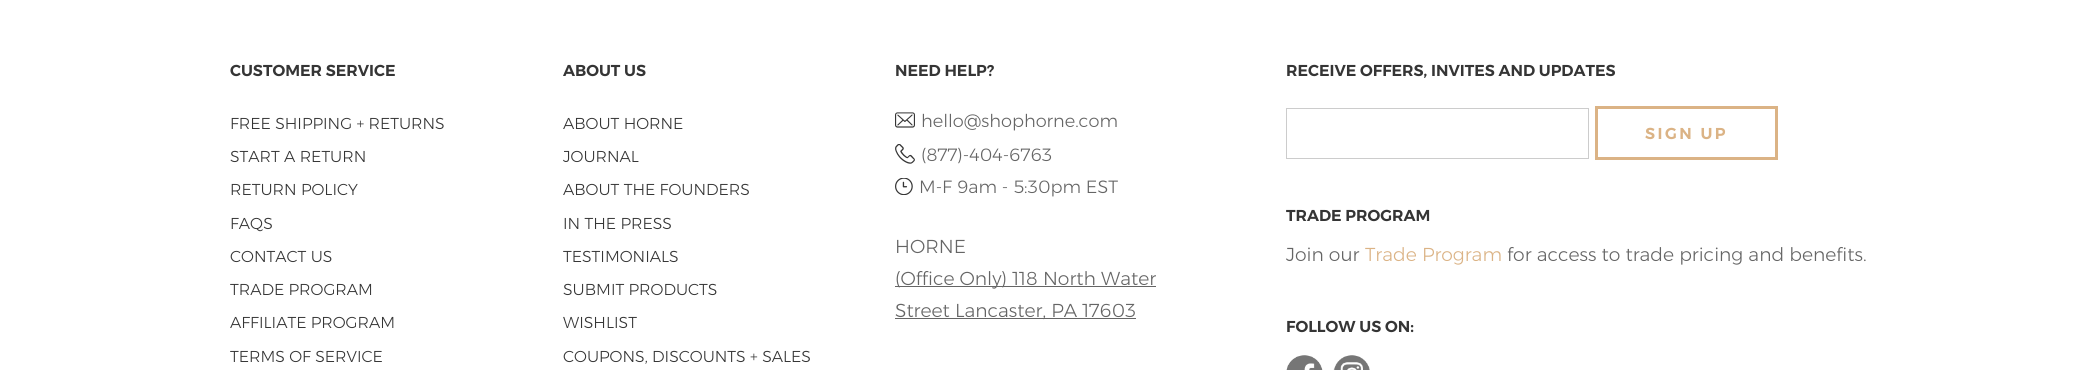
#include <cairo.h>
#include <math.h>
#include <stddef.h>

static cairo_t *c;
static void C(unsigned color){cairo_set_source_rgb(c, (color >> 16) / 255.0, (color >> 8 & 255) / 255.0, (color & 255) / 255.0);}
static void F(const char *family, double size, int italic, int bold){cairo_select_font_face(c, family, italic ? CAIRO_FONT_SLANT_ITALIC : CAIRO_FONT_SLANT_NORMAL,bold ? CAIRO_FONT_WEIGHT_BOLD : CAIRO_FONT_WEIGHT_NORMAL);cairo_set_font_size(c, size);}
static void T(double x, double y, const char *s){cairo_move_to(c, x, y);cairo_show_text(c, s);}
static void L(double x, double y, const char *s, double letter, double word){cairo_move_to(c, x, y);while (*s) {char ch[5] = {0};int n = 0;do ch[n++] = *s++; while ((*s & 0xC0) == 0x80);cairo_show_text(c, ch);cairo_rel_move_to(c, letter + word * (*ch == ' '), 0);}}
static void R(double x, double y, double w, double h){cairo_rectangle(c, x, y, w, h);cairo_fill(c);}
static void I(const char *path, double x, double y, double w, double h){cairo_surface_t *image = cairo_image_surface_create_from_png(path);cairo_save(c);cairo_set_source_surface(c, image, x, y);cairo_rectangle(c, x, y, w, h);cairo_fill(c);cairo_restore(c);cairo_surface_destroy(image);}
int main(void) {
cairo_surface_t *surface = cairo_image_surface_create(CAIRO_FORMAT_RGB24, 2096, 370);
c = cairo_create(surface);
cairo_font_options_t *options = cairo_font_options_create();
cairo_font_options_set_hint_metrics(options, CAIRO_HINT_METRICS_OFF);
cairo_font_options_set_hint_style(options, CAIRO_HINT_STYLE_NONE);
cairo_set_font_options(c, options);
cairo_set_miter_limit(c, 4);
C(0xffffff);
cairo_paint(c);
F("Montserrat SemiBold",15.8,0,0);
C(0x353535);
T(230,76,"CUSTOMER SERVICE");
F("Montserrat Light",15.8,0,0);
T(230,129,"FREE SHIPPING + RETURNS");
T(230,162,"START A RETURN");
T(230,195,"RETURN POLICY");
T(230,229,"FAQS");
T(230,262,"CONTACT US");
T(230,295,"TRADE PROGRAM");
T(230,328,"AFFILIATE PROGRAM");
T(230,362,"TERMS OF SERVICE");
F("Montserrat SemiBold",15.8,0,0);
T(563,76,"ABOUT US");
F("Montserrat Light",15.8,0,0);
T(563,129,"ABOUT HORNE");
T(563,162,"JOURNAL");
T(563,195,"ABOUT THE FOUNDERS");
T(563,229,"IN THE PRESS");
T(563,262,"TESTIMONIALS");
T(563,295,"SUBMIT PRODUCTS");
T(563,328,"WISHLIST");
T(563,362,"COUPONS, DISCOUNTS + SALES");
F("Montserrat SemiBold",15.8,0,0);
T(895,76,"NEED HELP?");
I("1.png",895,112,20,16);
F("Montserrat Light",17.75,0,0);
C(0x656565);
T(921,127,"hello@shophorne.com");
I("2.png",895,144,20,20);
T(921,161,"(877)-404-6763");
I("3.png",895,178,18,17);
T(919,193,"M-F 9am - 5:30pm EST");
F("Montserrat Light",18.75,0,0);
T(895,253,"HORNE");
R(895,286,261,1);
T(895,285,"(Office Only) 118 North Water");
R(895,318,241,1);
T(895,317,"Street Lancaster, PA 17603");
F("Montserrat SemiBold",15.8,0,0);
C(0x353535);
T(1286,76,"RECEIVE OFFERS, INVITES AND UPDATES");
cairo_rectangle(c,1286.5,108.5,302,50);
C(0xcccccc);
cairo_set_line_width(c,1);
cairo_stroke(c);
cairo_rectangle(c,1596.5,107.5,180,51);
C(0xdbb385);
cairo_set_line_width(c,3);
cairo_stroke(c);
L(1645,139,"SIGN UP",2.5,0);
C(0x353535);
T(1286,221,"TRADE PROGRAM");
F("Montserrat Light",18.75,0,0);
C(0x656565);
T(1286,261,"Join our");
C(0xdbb385);
T(1365,261,"Trade Program");
C(0x656565);
T(1507,261,"for access to trade pricing and benefits.");
F("Montserrat SemiBold",15.8,0,0);
C(0x353535);
T(1286,332,"FOLLOW US ON:");
I("4.png",1286,355,37,15);
I("5.png",1333,355,37,15);
cairo_surface_write_to_png(surface, "o.png");
cairo_font_options_destroy(options);
cairo_destroy(c);
cairo_surface_destroy(surface);
return 0;
}
